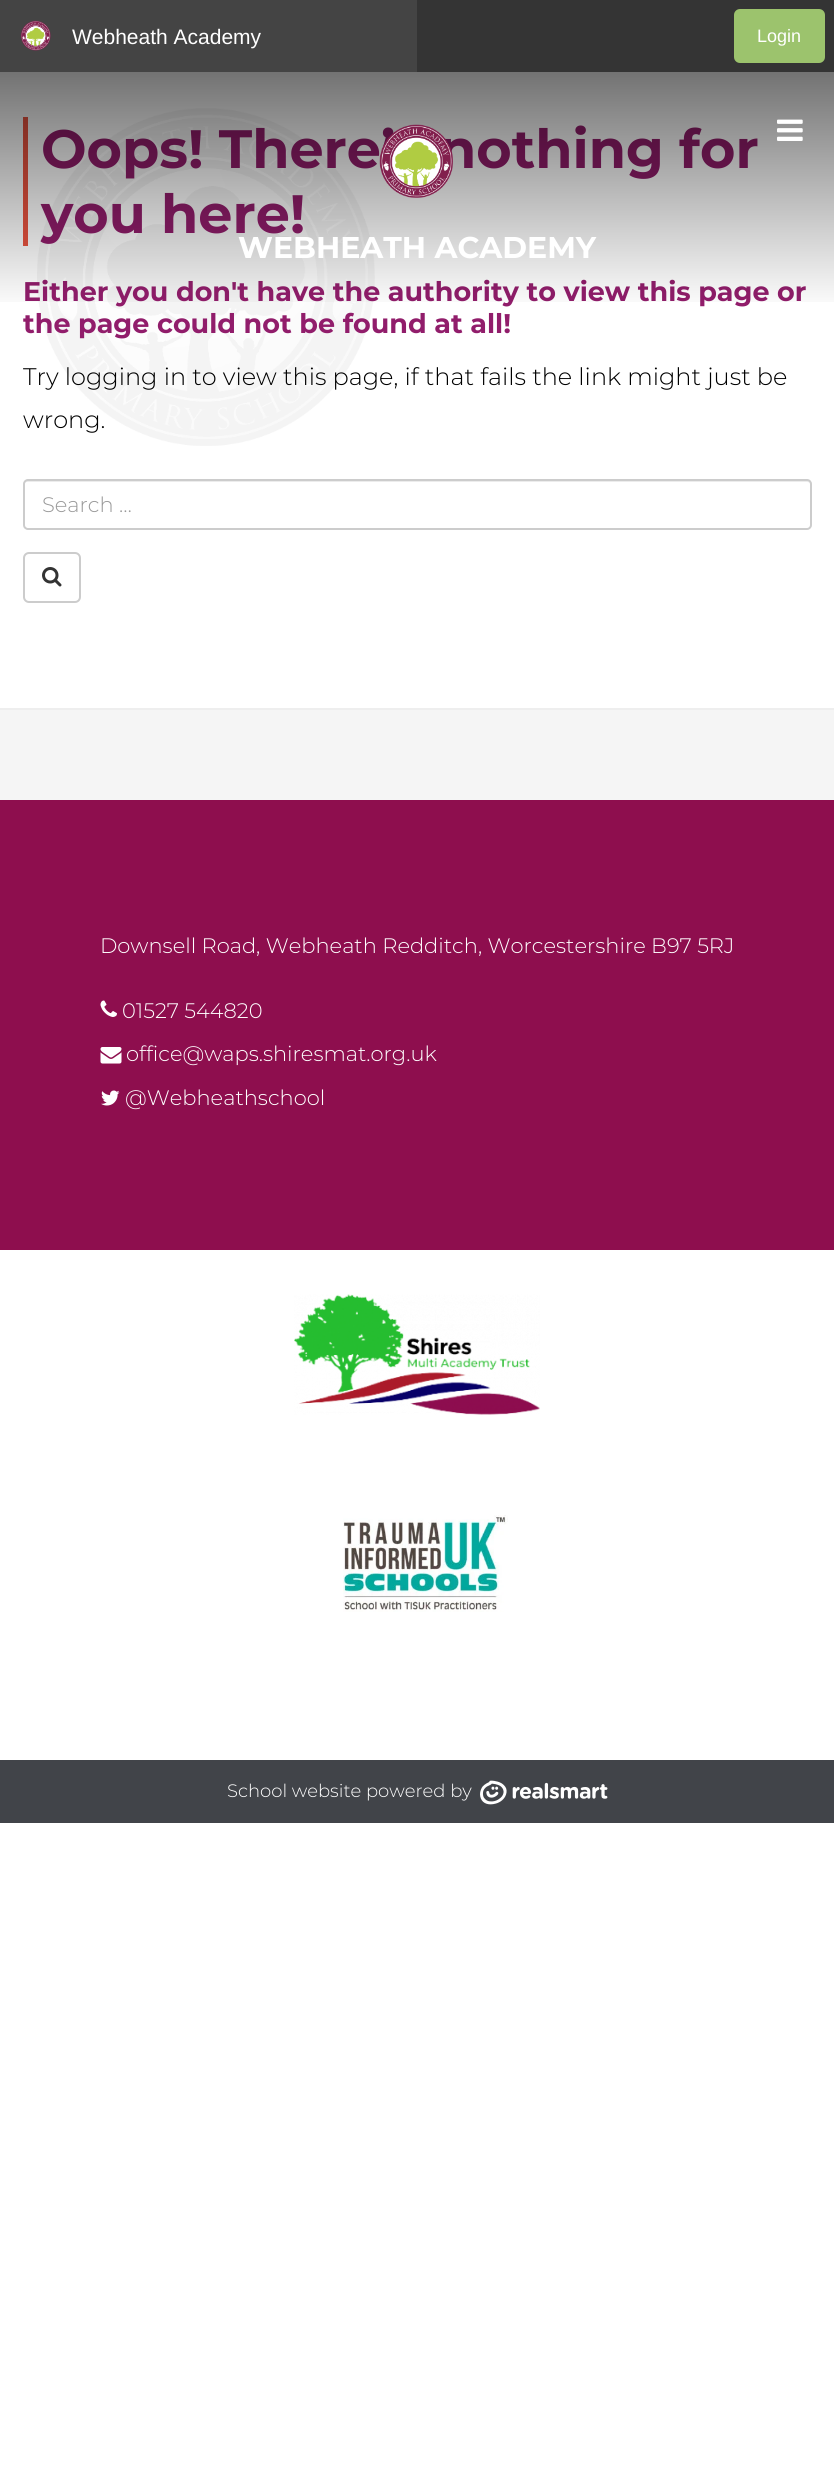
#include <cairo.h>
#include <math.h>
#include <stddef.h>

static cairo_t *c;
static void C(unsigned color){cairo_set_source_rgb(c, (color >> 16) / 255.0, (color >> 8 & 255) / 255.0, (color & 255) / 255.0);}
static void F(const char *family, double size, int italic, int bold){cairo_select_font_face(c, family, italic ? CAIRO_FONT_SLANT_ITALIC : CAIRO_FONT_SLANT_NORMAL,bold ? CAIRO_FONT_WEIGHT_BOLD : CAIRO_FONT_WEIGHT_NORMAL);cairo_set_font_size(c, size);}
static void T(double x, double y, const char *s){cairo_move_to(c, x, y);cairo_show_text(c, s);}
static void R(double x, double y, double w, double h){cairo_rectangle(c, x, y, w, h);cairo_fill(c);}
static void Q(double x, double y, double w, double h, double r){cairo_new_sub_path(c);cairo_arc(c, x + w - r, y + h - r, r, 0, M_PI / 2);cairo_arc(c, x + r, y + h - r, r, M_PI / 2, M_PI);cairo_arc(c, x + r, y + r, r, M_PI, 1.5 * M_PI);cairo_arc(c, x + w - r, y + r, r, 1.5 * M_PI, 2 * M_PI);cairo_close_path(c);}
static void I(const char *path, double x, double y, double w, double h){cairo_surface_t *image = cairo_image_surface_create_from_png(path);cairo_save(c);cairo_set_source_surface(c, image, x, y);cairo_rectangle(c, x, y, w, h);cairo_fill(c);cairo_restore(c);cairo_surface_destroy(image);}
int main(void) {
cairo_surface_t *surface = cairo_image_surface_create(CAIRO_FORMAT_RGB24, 834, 2468);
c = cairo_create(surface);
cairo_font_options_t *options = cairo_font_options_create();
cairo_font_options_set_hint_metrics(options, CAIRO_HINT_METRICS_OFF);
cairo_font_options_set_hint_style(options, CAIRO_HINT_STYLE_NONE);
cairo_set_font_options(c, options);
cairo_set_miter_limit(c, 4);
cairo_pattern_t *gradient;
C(0xffffff);
cairo_paint(c);
C(0x343434);
R(417,0,417,72);
C(0x444444);
R(0,0,417,72);
I("1.png",20,20,31,31);
F("Liberation Sans",21,0,0);
C(0xffffff);
T(72,44,"Webheath Academy");
C(0x9cc36d);
Q(734,9,91,54,6);
cairo_fill(c);
F("Liberation Sans",18,0,0);
C(0xffffff);
T(757,42,"Login");
I("2.png",37,108,338,338);
C(0xea5440);
R(23,117,5,129);
F("Montserrat",54,0,1);
C(0x911d6b);
T(41,168,"Oops! There’s nothing for");
T(41,233,"you here!");
F("Montserrat",27,0,1);
T(23,301,"Either you don't have the authority to view this page or");
cairo_save(c);
cairo_rectangle(c,23,117,789,501);
cairo_clip(c);
T(23,333,"the page could not be found at all!");
cairo_restore(c);
F("Montserrat Light",24,0,0);
C(0x000000);
T(23,385,"Try logging in to view this page, if that fails the link might just be");
T(23,428,"wrong.");
C(0xececec);
cairo_new_path(c);
cairo_move_to(c,27,482);
cairo_line_to(c,807,482);
cairo_curve_to(c,809,482,810,483,810,484);
cairo_curve_to(c,810,482,809,480,807,480);
cairo_line_to(c,27,480);
cairo_curve_to(c,25,480,24,482,24,484);
cairo_curve_to(c,24,483,25,482,27,482);
cairo_close_path(c);
cairo_fill(c);
Q(24,480,787,49,4);
C(0xcccccc);
cairo_stroke(c);
F("Montserrat Light",21,0,0);
C(0x999999);
T(42,512,"Search …");
Q(24,553,56,49,5);
C(0xcccccc);
cairo_stroke(c);
I("3.png",42,567,20,20);
C(0xeeeeee);
R(0,708,834,2);
C(0xf5f5f5);
R(0,710,834,90);
gradient = cairo_pattern_create_linear(417,72,417,311);
cairo_pattern_add_color_stop_rgba(gradient,0,0,0,0,.55);
cairo_pattern_add_color_stop_rgba(gradient,1,0,0,0,0);
cairo_set_source(c,gradient);
cairo_pattern_destroy(gradient);
R(0,72,834,230);
I("4.png",777,119,26,22);
I("5.png",379,124,74,74);
F("Montserrat",30,0,1);
C(0xffffff);
T(238,258,"WEBHEATH ACADEMY");
C(0x8e0e4e);
R(0,800,834,450);
F("Montserrat Light",21,0,0);
C(0xffffff);
T(100,953,"Downsell Road, Webheath Redditch, Worcestershire B97 5RJ");
I("6.png",100,1000,17,17);
T(122,1018,"01527 544820");
I("7.png",100,1047,22,17);
T(126,1061,"office@waps.shiresmat.org.uk");
I("8.png",101,1090,19,16);
T(125,1105,"@Webheathschool");
I("9.png",294,1294,246,121);
I("10.png",343,1515,165,97);
C(0x414449);
R(0,1760,834,63);
F("Montserrat Light",18,0,0);
C(0xffffff);
T(227,1797,"School website powered by");
I("11.png",480,1780,128,25);
cairo_surface_write_to_png(surface, "o.png");
cairo_font_options_destroy(options);
cairo_destroy(c);
cairo_surface_destroy(surface);
return 0;
}
